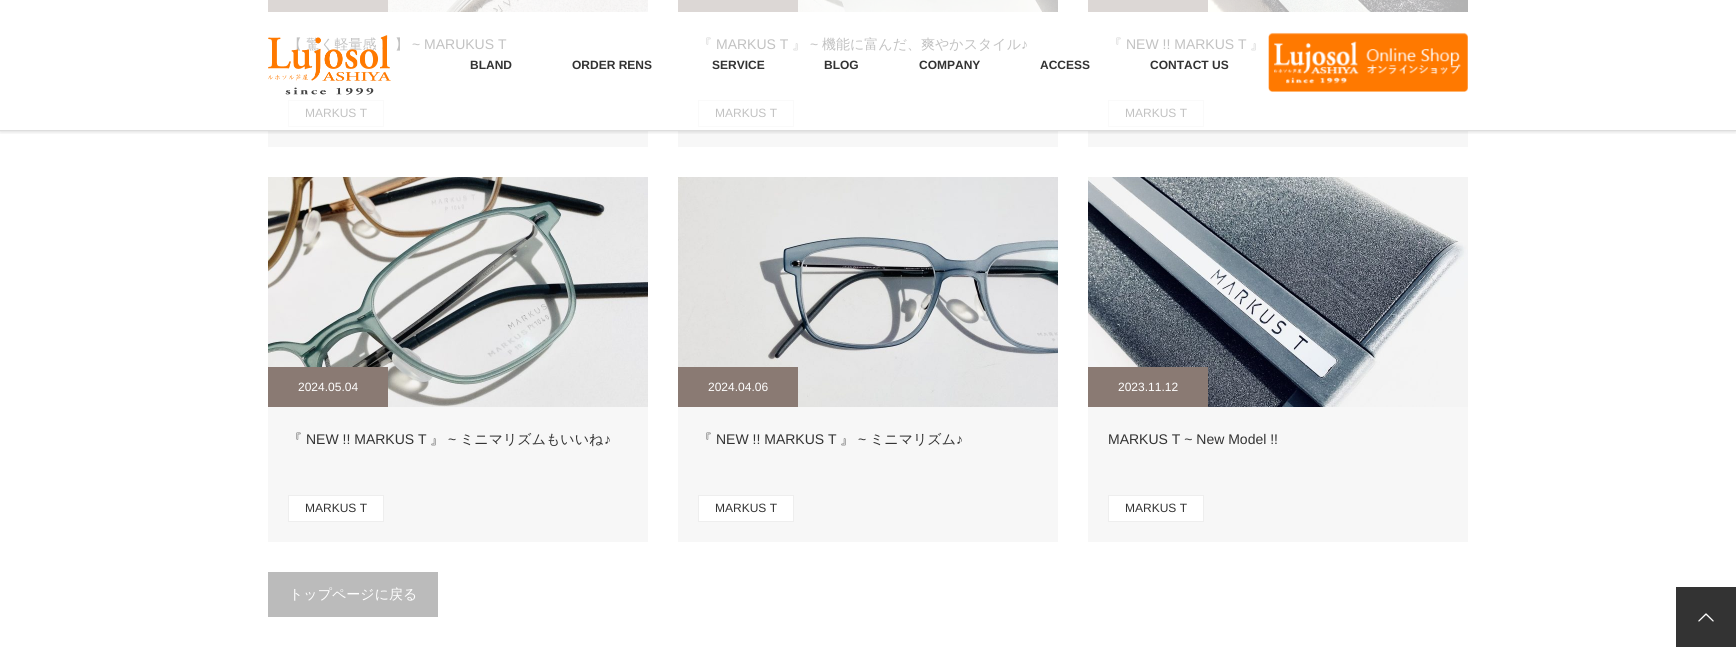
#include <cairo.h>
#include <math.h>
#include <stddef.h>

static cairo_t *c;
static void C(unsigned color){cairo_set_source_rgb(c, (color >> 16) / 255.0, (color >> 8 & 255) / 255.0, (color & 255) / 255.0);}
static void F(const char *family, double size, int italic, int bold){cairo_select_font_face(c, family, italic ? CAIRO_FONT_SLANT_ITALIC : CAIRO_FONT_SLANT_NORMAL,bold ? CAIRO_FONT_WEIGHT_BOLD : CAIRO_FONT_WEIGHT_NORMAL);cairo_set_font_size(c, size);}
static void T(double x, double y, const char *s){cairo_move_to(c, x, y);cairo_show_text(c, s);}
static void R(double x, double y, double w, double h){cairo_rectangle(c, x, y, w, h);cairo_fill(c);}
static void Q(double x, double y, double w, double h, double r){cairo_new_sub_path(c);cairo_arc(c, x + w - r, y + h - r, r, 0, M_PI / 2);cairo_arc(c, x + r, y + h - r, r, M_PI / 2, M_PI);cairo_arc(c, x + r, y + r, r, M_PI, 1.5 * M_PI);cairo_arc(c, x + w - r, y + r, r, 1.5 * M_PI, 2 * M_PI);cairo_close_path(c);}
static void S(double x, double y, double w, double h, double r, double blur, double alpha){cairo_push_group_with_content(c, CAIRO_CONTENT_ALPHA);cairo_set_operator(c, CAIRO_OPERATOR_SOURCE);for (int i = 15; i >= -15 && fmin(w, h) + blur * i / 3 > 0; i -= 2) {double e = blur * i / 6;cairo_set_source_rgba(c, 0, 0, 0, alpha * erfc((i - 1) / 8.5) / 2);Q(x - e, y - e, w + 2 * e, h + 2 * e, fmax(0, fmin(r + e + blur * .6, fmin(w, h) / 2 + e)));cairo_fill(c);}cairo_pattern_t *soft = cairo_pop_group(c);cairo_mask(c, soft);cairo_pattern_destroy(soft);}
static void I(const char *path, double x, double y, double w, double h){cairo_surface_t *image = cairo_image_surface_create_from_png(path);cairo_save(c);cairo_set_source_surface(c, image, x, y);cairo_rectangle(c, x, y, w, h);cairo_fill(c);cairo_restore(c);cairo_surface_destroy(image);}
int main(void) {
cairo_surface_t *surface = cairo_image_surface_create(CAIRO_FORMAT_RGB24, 1736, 647);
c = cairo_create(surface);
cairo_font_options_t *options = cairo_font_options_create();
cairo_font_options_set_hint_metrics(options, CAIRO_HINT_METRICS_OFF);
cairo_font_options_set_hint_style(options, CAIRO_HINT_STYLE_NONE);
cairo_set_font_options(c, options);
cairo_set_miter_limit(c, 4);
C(0xffffff);
cairo_paint(c);
C(0xdcd7d5);
R(268,0,120,12);
I("1.png",388,0,260,12);
C(0xf7f7f7);
R(268,131,380,16);
F("WenQuanYi Zen Hei Medium",14,0,0);
C(0xc2c2c2);
T(288,49,"【 驚く軽量感！ 】");
F("Liberation Sans",14,0,0);
T(412,49,"~ MARUKUS T");
cairo_rectangle(c,288.5,100.5,95,26);
C(0xfafafa);
cairo_set_line_width(c,1);
cairo_stroke(c);
F("Liberation Sans",12,0,0);
C(0xc2c2c2);
T(305,117,"MARKUS T");
C(0xdcd7d5);
R(678,0,120,12);
I("2.png",798,0,260,12);
C(0xf7f7f7);
R(678,131,380,16);
F("WenQuanYi Zen Hei Medium",14,0,0);
C(0xc2c2c2);
T(698,49,"『");
F("Liberation Sans",14,0,0);
T(716,49,"MARKUS T");
F("WenQuanYi Zen Hei Medium",14,0,0);
T(792,49,"』");
F("Liberation Sans",14,0,0);
T(810,49,"~");
F("WenQuanYi Zen Hei Medium",14,0,0);
T(822,49,"機能に富んだ、爽やかスタイル");
F("Liberation Sans",14,0,0);
T(1021,49,"♪");
cairo_rectangle(c,698.5,100.5,95,26);
C(0xfafafa);
cairo_stroke(c);
F("Liberation Sans",12,0,0);
C(0xc2c2c2);
T(715,117,"MARKUS T");
C(0xdcd7d5);
R(1088,0,120,12);
I("3.png",1208,0,260,12);
C(0xf7f7f7);
R(1088,131,380,16);
F("WenQuanYi Zen Hei Medium",14,0,0);
C(0xc2c2c2);
T(1108,49,"『");
F("Liberation Sans",14,0,0);
T(1126,49,"NEW !! MARKUS T");
F("WenQuanYi Zen Hei Medium",14,0,0);
T(1250,49,"』");
cairo_rectangle(c,1108.5,100.5,95,26);
C(0xfafafa);
cairo_stroke(c);
F("Liberation Sans",12,0,0);
C(0xc2c2c2);
T(1125,117,"MARKUS T");
I("4.png",268,177,380,230);
C(0x8a7a73);
R(268,367,120,40);
C(0xffffff);
T(298,391,"2024.05.04");
C(0xf7f7f7);
R(268,407,380,135);
F("WenQuanYi Zen Hei Medium",14,0,0);
C(0x333333);
T(288,444,"『");
F("Liberation Sans",14,0,0);
T(306,444,"NEW !! MARKUS T");
F("WenQuanYi Zen Hei Medium",14,0,0);
T(430,444,"』");
F("Liberation Sans",14,0,0);
T(448,444,"~");
F("WenQuanYi Zen Hei Medium",14,0,0);
T(460,444,"ミニマリズムもいいね");
F("Liberation Sans",14,0,0);
T(604,444,"♪");
C(0xffffff);
cairo_rectangle(c,288.5,495.5,95,26);
cairo_fill_preserve(c);
C(0xeeeeee);
cairo_stroke(c);
F("Liberation Sans",12,0,0);
C(0x333333);
T(305,512,"MARKUS T");
I("5.png",678,177,380,230);
C(0x8a7a73);
R(678,367,120,40);
C(0xffffff);
T(708,391,"2024.04.06");
C(0xf7f7f7);
R(678,407,380,135);
F("WenQuanYi Zen Hei Medium",14,0,0);
C(0x333333);
T(698,444,"『");
F("Liberation Sans",14,0,0);
T(716,444,"NEW !! MARKUS T");
F("WenQuanYi Zen Hei Medium",14,0,0);
T(840,444,"』");
F("Liberation Sans",14,0,0);
T(858,444,"~");
F("WenQuanYi Zen Hei Medium",14,0,0);
T(870,444,"ミニマリズム");
F("Liberation Sans",14,0,0);
T(956,444,"♪");
C(0xffffff);
cairo_rectangle(c,698.5,495.5,95,26);
cairo_fill_preserve(c);
C(0xeeeeee);
cairo_stroke(c);
F("Liberation Sans",12,0,0);
C(0x333333);
T(715,512,"MARKUS T");
I("6.png",1088,177,380,230);
C(0x8a7a73);
R(1088,367,120,40);
C(0xffffff);
T(1118,391,"2023.11.12");
C(0xf7f7f7);
R(1088,407,380,135);
F("Liberation Sans",14,0,0);
C(0x333333);
T(1108,444,"MARKUS T ~ New Model !!");
C(0xffffff);
cairo_rectangle(c,1108.5,495.5,95,26);
cairo_fill_preserve(c);
C(0xeeeeee);
cairo_stroke(c);
F("Liberation Sans",12,0,0);
C(0x333333);
T(1125,512,"MARKUS T");
C(0xbbbbbb);
R(268,572,170,45);
F("WenQuanYi Zen Hei Medium",14,0,0);
C(0xffffff);
T(289,599,"トップページに戻る");
cairo_save(c);
cairo_rectangle(c,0,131,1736,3);
cairo_clip(c);
C(0x000000);
S(0,0,1736,131,0,2.5,.2);
cairo_restore(c);
C(0xdddddd);
R(0,130,1736,1);
I("7.png",268,35,123,60);
F("Liberation Sans",12,0,1);
C(0x333333);
T(470,69,"BLAND");
T(572,69,"ORDER RENS");
T(712,69,"SERVICE");
T(824,69,"BLOG");
T(919,69,"COMPANY");
T(1040,69,"ACCESS");
T(1150,69,"CONTACT US");
I("8.png",1268,32,200,60);
R(1676,587,60,60);
I("9.png",1698,613,16,9);
cairo_surface_write_to_png(surface, "o.png");
cairo_font_options_destroy(options);
cairo_destroy(c);
cairo_surface_destroy(surface);
return 0;
}
